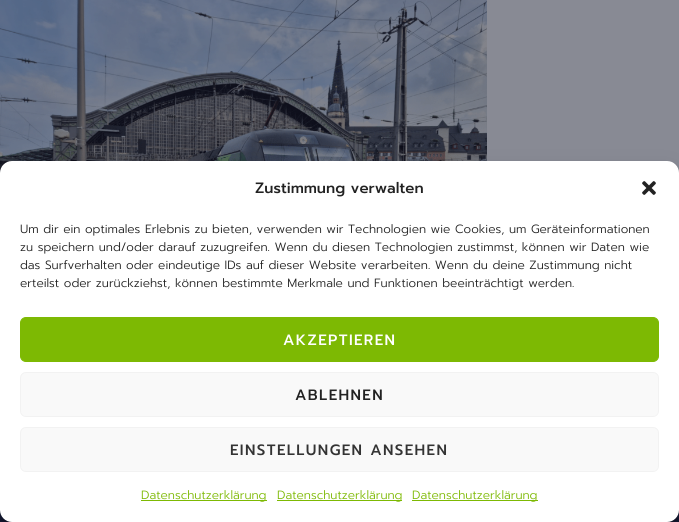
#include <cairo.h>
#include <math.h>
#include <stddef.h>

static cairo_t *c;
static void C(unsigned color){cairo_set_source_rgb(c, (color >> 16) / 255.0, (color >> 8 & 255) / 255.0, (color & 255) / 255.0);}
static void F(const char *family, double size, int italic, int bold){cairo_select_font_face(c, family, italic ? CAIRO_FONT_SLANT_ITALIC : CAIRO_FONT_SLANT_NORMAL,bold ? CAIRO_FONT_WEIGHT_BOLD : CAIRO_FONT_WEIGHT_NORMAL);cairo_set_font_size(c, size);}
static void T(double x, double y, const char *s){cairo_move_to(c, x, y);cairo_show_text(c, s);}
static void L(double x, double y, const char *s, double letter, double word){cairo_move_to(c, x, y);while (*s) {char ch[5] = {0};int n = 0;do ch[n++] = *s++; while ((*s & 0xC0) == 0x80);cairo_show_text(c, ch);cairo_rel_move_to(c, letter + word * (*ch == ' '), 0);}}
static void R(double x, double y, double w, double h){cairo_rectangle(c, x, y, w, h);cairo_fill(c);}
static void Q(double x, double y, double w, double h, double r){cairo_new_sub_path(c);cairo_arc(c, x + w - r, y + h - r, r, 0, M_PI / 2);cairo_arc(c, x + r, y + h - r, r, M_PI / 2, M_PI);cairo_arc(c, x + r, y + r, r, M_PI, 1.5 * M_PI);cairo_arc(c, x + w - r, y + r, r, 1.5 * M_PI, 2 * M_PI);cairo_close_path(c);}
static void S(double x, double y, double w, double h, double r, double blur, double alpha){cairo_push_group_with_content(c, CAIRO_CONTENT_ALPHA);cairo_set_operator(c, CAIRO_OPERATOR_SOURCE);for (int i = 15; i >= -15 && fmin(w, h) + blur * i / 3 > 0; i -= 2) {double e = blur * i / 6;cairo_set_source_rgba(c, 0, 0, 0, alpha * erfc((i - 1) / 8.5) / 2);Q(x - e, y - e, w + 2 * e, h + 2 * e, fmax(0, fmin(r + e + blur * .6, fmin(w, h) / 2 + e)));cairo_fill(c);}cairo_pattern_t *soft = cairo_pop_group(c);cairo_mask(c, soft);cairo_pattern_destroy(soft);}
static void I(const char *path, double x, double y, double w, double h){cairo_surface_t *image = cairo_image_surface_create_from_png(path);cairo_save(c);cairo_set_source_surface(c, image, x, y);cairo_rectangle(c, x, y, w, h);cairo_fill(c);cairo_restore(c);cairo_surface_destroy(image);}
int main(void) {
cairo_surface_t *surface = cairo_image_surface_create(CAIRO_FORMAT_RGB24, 679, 522);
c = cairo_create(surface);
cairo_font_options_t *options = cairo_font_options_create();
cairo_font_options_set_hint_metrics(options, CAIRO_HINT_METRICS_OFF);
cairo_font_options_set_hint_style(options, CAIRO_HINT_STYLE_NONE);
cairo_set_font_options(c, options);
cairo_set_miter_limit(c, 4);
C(0x888a94);
cairo_paint(c);
I("1.png",0,0,487,173);
C(0x161a36);
R(0,510,679,12);
C(0x000000);
S(0,167,679,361,12,3,.23);
S(0,171,679,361,12,10,.19);
C(0xffffff);
Q(0,161,679,361,12);
cairo_fill(c);
F("Prompt Medium",15,0,0);
C(0x222222);
T(255,193,"Zustimmung verwalten");
I("2.png",642,181,14,14);
F("Prompt Light",12,0,0);
T(20,233,"Um dir ein optimales Erlebnis zu bieten, verwenden wir Technologien wie Cookies, um Geräteinformationen");
T(20,251,"zu speichern und/oder darauf zuzugreifen. Wenn du diesen Technologien zustimmst, können wir Daten wie");
T(20,269,"das Surfverhalten oder eindeutige IDs auf dieser Website verarbeiten. Wenn du deine Zustimmung nicht");
T(20,287,"erteilst oder zurückziehst, können bestimmte Merkmale und Funktionen beeinträchtigt werden.");
C(0x7db903);
Q(20.5,317.5,638,44,5.5);
cairo_fill_preserve(c);
cairo_set_line_width(c,1);
cairo_stroke(c);
F("Prompt Medium",15,0,0);
C(0xffffff);
L(283,345,"AKZEPTIEREN",1.4,0);
C(0xf9f9f9);
Q(20.5,372.5,638,44,5.5);
cairo_fill_preserve(c);
C(0xf2f2f2);
cairo_stroke(c);
C(0x222222);
L(295,400,"ABLEHNEN",1.4,0);
C(0xf9f9f9);
Q(20.5,427.5,638,44,5.5);
cairo_fill_preserve(c);
C(0xf2f2f2);
cairo_stroke(c);
C(0x333333);
L(230,455,"EINSTELLUNGEN ANSEHEN",1.4,0);
C(0x7db903);
R(141,500,126,1);
F("Prompt Light",12,0,0);
T(141,499,"Datenschutzerklärung");
R(277,500,125,1);
T(277,499,"Datenschutzerklärung");
R(412,500,126,1);
T(412,499,"Datenschutzerklärung");
cairo_surface_write_to_png(surface, "o.png");
cairo_font_options_destroy(options);
cairo_destroy(c);
cairo_surface_destroy(surface);
return 0;
}
